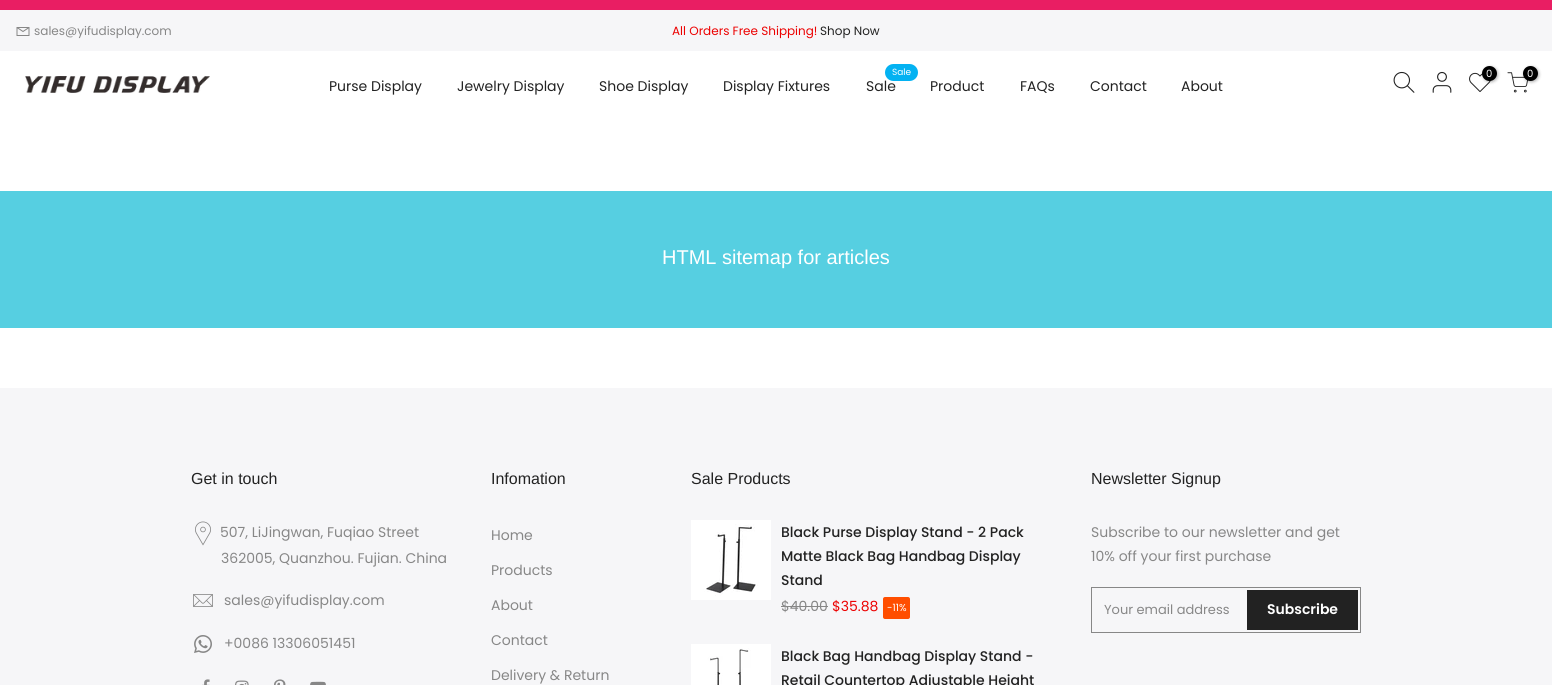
#include <cairo.h>
#include <math.h>
#include <stddef.h>

static cairo_t *c;
static void C(unsigned color){cairo_set_source_rgb(c, (color >> 16) / 255.0, (color >> 8 & 255) / 255.0, (color & 255) / 255.0);}
static void F(const char *family, double size, int italic, int bold){cairo_select_font_face(c, family, italic ? CAIRO_FONT_SLANT_ITALIC : CAIRO_FONT_SLANT_NORMAL,bold ? CAIRO_FONT_WEIGHT_BOLD : CAIRO_FONT_WEIGHT_NORMAL);cairo_set_font_size(c, size);}
static void T(double x, double y, const char *s){cairo_move_to(c, x, y);cairo_show_text(c, s);}
static void R(double x, double y, double w, double h){cairo_rectangle(c, x, y, w, h);cairo_fill(c);}
static void Q(double x, double y, double w, double h, double r){cairo_new_sub_path(c);cairo_arc(c, x + w - r, y + h - r, r, 0, M_PI / 2);cairo_arc(c, x + r, y + h - r, r, M_PI / 2, M_PI);cairo_arc(c, x + r, y + r, r, M_PI, 1.5 * M_PI);cairo_arc(c, x + w - r, y + r, r, 1.5 * M_PI, 2 * M_PI);cairo_close_path(c);}
static void S(double x, double y, double w, double h, double r, double blur, double alpha){cairo_push_group_with_content(c, CAIRO_CONTENT_ALPHA);cairo_set_operator(c, CAIRO_OPERATOR_SOURCE);for (int i = 15; i >= -15 && fmin(w, h) + blur * i / 3 > 0; i -= 2) {double e = blur * i / 6;cairo_set_source_rgba(c, 0, 0, 0, alpha * erfc((i - 1) / 8.5) / 2);Q(x - e, y - e, w + 2 * e, h + 2 * e, fmax(0, fmin(r + e + blur * .6, fmin(w, h) / 2 + e)));cairo_fill(c);}cairo_pattern_t *soft = cairo_pop_group(c);cairo_mask(c, soft);cairo_pattern_destroy(soft);}
static void I(const char *path, double x, double y, double w, double h){cairo_surface_t *image = cairo_image_surface_create_from_png(path);cairo_save(c);cairo_set_source_surface(c, image, x, y);cairo_rectangle(c, x, y, w, h);cairo_fill(c);cairo_restore(c);cairo_surface_destroy(image);}
int main(void) {
cairo_surface_t *surface = cairo_image_surface_create(CAIRO_FORMAT_RGB24, 1552, 685);
c = cairo_create(surface);
cairo_font_options_t *options = cairo_font_options_create();
cairo_font_options_set_hint_metrics(options, CAIRO_HINT_METRICS_OFF);
cairo_font_options_set_hint_style(options, CAIRO_HINT_STYLE_NONE);
cairo_set_font_options(c, options);
cairo_set_miter_limit(c, 4);
C(0xffffff);
cairo_paint(c);
C(0xe91e63);
R(0,0,1552,10);
C(0xf6f6f8);
R(0,10,1552,41);
I("1.png",16,27,14,9);
F("Poppins",12,0,0);
C(0x878787);
T(34,35,"sales@yifudisplay.com");
C(0xec0101);
T(672,35,"All Orders Free Shipping!");
C(0x222222);
T(820,35,"Shop Now");
F("Poppins",14,0,0);
T(329,91,"Purse Display");
T(457,91,"Jewelry Display");
T(599,91,"Shoe Display");
T(723,91,"Display Fixtures");
T(866,91,"Sale");
C(0x03b2f2);
Q(885,64,33,17,8.5);
cairo_fill(c);
F("Poppins",9,0,0);
C(0xffffff);
T(892,75,"Sale");
F("Poppins",14,0,0);
C(0x222222);
T(930,91,"Product");
T(1020,91,"FAQs");
T(1090,91,"Contact");
T(1181,91,"About");
I("2.png",1393,71,22,22);
I("3.png",1432,71,20,22);
I("4.png",1469,72,22,20);
C(0x000000);
S(1483,67,15,15,7.5,1.5,.3);
C(0x000000);
cairo_arc(c,1489.5,73.5,7.5,0,2 * M_PI);
cairo_fill(c);
F("Poppins",10,0,0);
C(0xffffff);
T(1486,77,"0");
I("5.png",1507,72,21,21);
C(0x000000);
S(1524,67,15,15,7.5,1.5,.3);
C(0x000000);
cairo_arc(c,1530.5,73.5,7.5,0,2 * M_PI);
cairo_fill(c);
C(0xffffff);
T(1527,77,"0");
I("6.png",25,76,185,17);
C(0x56cfe1);
R(0,191,1552,137);
F("Liberation Sans",20,0,0);
C(0xffffff);
T(662,264,"HTML sitemap for articles");
C(0xf6f6f8);
R(0,388,1552,297);
F("Liberation Sans",16,0,0);
C(0x222222);
T(191,484,"Get in touch");
I("7.png",195,521,16,25);
F("Poppins",14,0,0);
C(0x878787);
T(220,537,"507, LiJingwan, Fuqiao Street");
T(221,563,"362005, Quanzhou. Fujian. China");
I("8.png",193,594,20,13);
T(224,605,"sales@yifudisplay.com");
I("9.png",194,635,18,18);
T(224,648,"+0086 13306051451");
I("10.png",202,679,8,6);
I("11.png",235,680,14,5);
I("12.png",274,679,12,6);
I("13.png",310,681,16,4);
F("Liberation Sans",16,0,0);
C(0x222222);
T(491,484,"Infomation");
F("Poppins",14,0,0);
C(0x878787);
T(491,540,"Home");
T(491,575,"Products");
T(491,610,"About");
T(491,645,"Contact");
T(491,680,"Delivery & Return");
F("Liberation Sans",16,0,0);
C(0x222222);
T(691,484,"Sale Products");
I("14.png",691,520,80,80);
F("Poppins Medium",14,0,0);
T(781,537,"Black Purse Display Stand - 2 Pack");
T(781,561,"Matte Black Bag Handbag Display");
T(781,585,"Stand");
F("Poppins",14,0,0);
C(0x878787);
T(781,611,"$40.00");
R(781,606,47,1);
C(0xec0101);
T(832,611,"$35.88");
C(0xff4e00);
Q(883,597,27,22,2);
cairo_fill(c);
F("Poppins",10,0,0);
C(0xffffff);
T(887,611,"-11%");
I("15.png",691,644,80,41);
F("Poppins Medium",14,0,0);
C(0x222222);
T(781,661,"Black Bag Handbag Display Stand -");
T(781,685,"Retail Countertop Adjustable Height");
F("Liberation Sans",16,0,0);
T(1091,484,"Newsletter Signup");
F("Poppins",14,0,0);
C(0x878787);
T(1091,537,"Subscribe to our newsletter and get");
T(1091,561,"10% off your first purchase");
cairo_rectangle(c,1091.5,587.5,269,45);
cairo_set_line_width(c,1);
cairo_stroke(c);
F("Poppins",13,0,0);
T(1104,614,"Your email address");
C(0x222222);
R(1247,590,111,40);
F("Poppins SemiBold",14,0,0);
C(0xffffff);
T(1267,614,"Subscribe");
cairo_surface_write_to_png(surface, "o.png");
cairo_font_options_destroy(options);
cairo_destroy(c);
cairo_surface_destroy(surface);
return 0;
}
